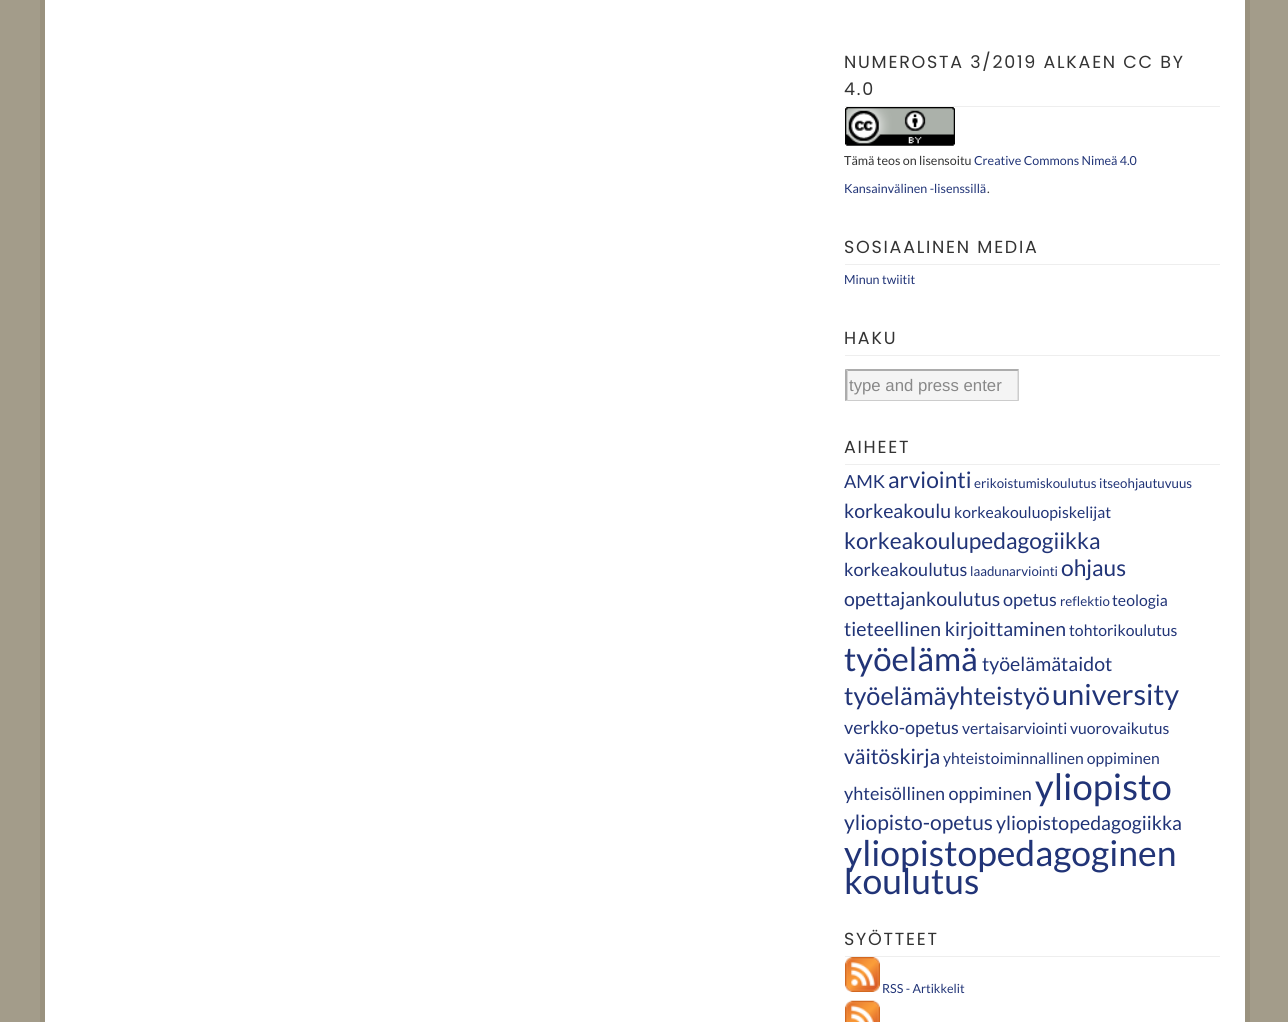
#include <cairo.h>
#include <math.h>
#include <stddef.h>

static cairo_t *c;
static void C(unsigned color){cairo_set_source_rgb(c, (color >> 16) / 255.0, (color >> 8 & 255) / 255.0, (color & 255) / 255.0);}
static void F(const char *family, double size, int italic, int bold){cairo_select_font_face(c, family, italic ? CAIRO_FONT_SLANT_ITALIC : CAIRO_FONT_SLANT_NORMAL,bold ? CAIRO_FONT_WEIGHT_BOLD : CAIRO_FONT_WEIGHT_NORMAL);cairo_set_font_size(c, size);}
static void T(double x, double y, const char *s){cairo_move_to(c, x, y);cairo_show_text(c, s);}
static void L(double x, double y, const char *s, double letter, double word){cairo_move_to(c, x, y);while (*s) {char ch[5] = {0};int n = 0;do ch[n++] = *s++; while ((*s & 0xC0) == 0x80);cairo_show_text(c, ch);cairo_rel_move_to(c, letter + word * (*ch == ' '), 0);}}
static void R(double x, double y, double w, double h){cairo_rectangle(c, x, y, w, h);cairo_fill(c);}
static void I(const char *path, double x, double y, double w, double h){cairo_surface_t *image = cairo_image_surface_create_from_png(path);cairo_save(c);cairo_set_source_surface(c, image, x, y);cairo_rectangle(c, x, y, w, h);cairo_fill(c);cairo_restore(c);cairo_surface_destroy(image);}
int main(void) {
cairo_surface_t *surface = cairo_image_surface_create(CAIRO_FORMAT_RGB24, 1288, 1022);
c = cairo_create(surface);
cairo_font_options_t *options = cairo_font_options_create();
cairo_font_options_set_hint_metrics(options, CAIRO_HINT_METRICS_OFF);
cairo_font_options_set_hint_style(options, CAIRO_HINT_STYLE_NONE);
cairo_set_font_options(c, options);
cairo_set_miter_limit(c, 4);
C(0xa39c8a);
cairo_paint(c);
C(0xffffff);
R(45,0,1200,1022);
C(0x9a927f);
R(1245,0,5,1022);
R(40,0,5,1022);
C(0xeeeeee);
R(845,106,375,1);
F("Poppins",17.5,0,0);
C(0x333333);
L(844,68,"NUMEROSTA 3/2019 ALKAEN CC BY",1.75,0);
L(844,95,"4.0",1.75,0);
I("1.png",845,107,110,39);
F("Lato",12.5,0,0);
T(844,165,"Tämä teos on lisensoitu");
C(0x213477);
T(974,165,"Creative Commons Nimeä 4.0");
T(844,193,"Kansainvälinen -lisenssillä");
C(0x333333);
T(987,193,".");
C(0xeeeeee);
R(845,264,375,1);
F("Poppins",17.5,0,0);
C(0x333333);
L(844,253,"SOSIAALINEN MEDIA",1.75,0);
F("Lato",12.5,0,0);
C(0x213477);
T(844,284,"Minun twiitit");
C(0xeeeeee);
R(845,355,375,1);
F("Poppins",17.5,0,0);
C(0x333333);
L(844,344,"HAKU",1.75,0);
C(0xf4f4f4);
R(848,371,170,29);
C(0xacacac);
cairo_new_path(c);
cairo_move_to(c,845,369);
cairo_line_to(c,1019,369);
cairo_line_to(c,1018,371);
cairo_line_to(c,848,371);
cairo_close_path(c);
cairo_fill(c);
C(0xcccccc);
cairo_new_path(c);
cairo_move_to(c,1019,369);
cairo_line_to(c,1019,401);
cairo_line_to(c,1017.5,400);
cairo_line_to(c,1017.5,371);
cairo_close_path(c);
cairo_fill(c);
cairo_new_path(c);
cairo_move_to(c,1019,401);
cairo_line_to(c,845,401);
cairo_line_to(c,848,400);
cairo_line_to(c,1018,400);
cairo_close_path(c);
cairo_fill(c);
C(0xacacac);
cairo_new_path(c);
cairo_move_to(c,845,401);
cairo_line_to(c,845,369);
cairo_line_to(c,847.5,371);
cairo_line_to(c,847.5,400);
cairo_close_path(c);
cairo_fill(c);
F("Liberation Sans",16.75,0,0);
C(0x888888);
T(849,391,"type and press enter");
C(0xeeeeee);
R(845,464,375,1);
F("Poppins",17.5,0,0);
C(0x333333);
L(844,453,"AIHEET",1.75,0);
F("Lato",18,0,0);
C(0x213477);
T(844,488,"AMK");
F("Lato",22.75,0,0);
T(888,488,"arviointi");
F("Lato",13.3,0,0);
T(974,488,"erikoistumiskoulutus itseohjautuvuus");
F("Lato",19.5,0,0);
T(844,518,"korkeakoulu");
F("Lato",15.75,0,0);
T(954,518,"korkeakouluopiskelijat");
F("Lato",22.75,0,0);
T(844,549,"korkeakoulupedagogiikka");
F("Lato",18,0,0);
T(844,576,"korkeakoulutus");
F("Lato",13.3,0,0);
T(970,576,"laadunarviointi");
F("Lato",22.75,0,0);
T(1061,576,"ohjaus");
F("Lato",19.5,0,0);
T(844,606,"opettajankoulutus");
F("Lato",18,0,0);
T(1003,606,"opetus");
F("Lato",13.3,0,0);
T(1060,606,"reflektio");
F("Lato",15.75,0,0);
T(1112,606,"teologia");
F("Lato",19.5,0,0);
T(844,636,"tieteellinen kirjoittaminen");
F("Lato",15.75,0,0);
T(1069,636,"tohtorikoulutus");
F("Lato",33,0,0);
T(844,671,"työelämä");
F("Lato",19.5,0,0);
T(982,671,"työelämätaidot");
F("Lato",25.25,0,0);
T(844,705,"työelämäyhteistyö");
F("Lato",29,0,0);
T(1052,705,"university");
F("Lato",18,0,0);
T(844,734,"verkko-opetus");
F("Lato",15.75,0,0);
T(962,734,"vertaisarviointi");
T(1070,734,"vuorovaikutus");
F("Lato",21,0,0);
T(844,764,"väitöskirja");
F("Lato",15.75,0,0);
T(943,764,"yhteistoiminnallinen oppiminen");
F("Lato",18,0,0);
T(844,800,"yhteisöllinen oppiminen");
F("Lato",36.5,0,0);
T(1035,800,"yliopisto");
F("Lato",21,0,0);
T(844,830,"yliopisto-opetus");
F("Lato",19.5,0,0);
T(996,830,"yliopistopedagogiikka");
F("Lato",35.5,0,0);
T(844,866,"yliopistopedagoginen");
T(844,894,"koulutus");
C(0xeeeeee);
R(845,956,375,1);
F("Poppins",17.5,0,0);
C(0x333333);
L(844,945,"SYÖTTEET",1.75,0);
I("2.png",845,957,35,35);
F("Lato",12.5,0,0);
C(0x213477);
T(882,993,"RSS - Artikkelit");
I("3.png",845,1000,35,22);
cairo_surface_write_to_png(surface, "o.png");
cairo_font_options_destroy(options);
cairo_destroy(c);
cairo_surface_destroy(surface);
return 0;
}
